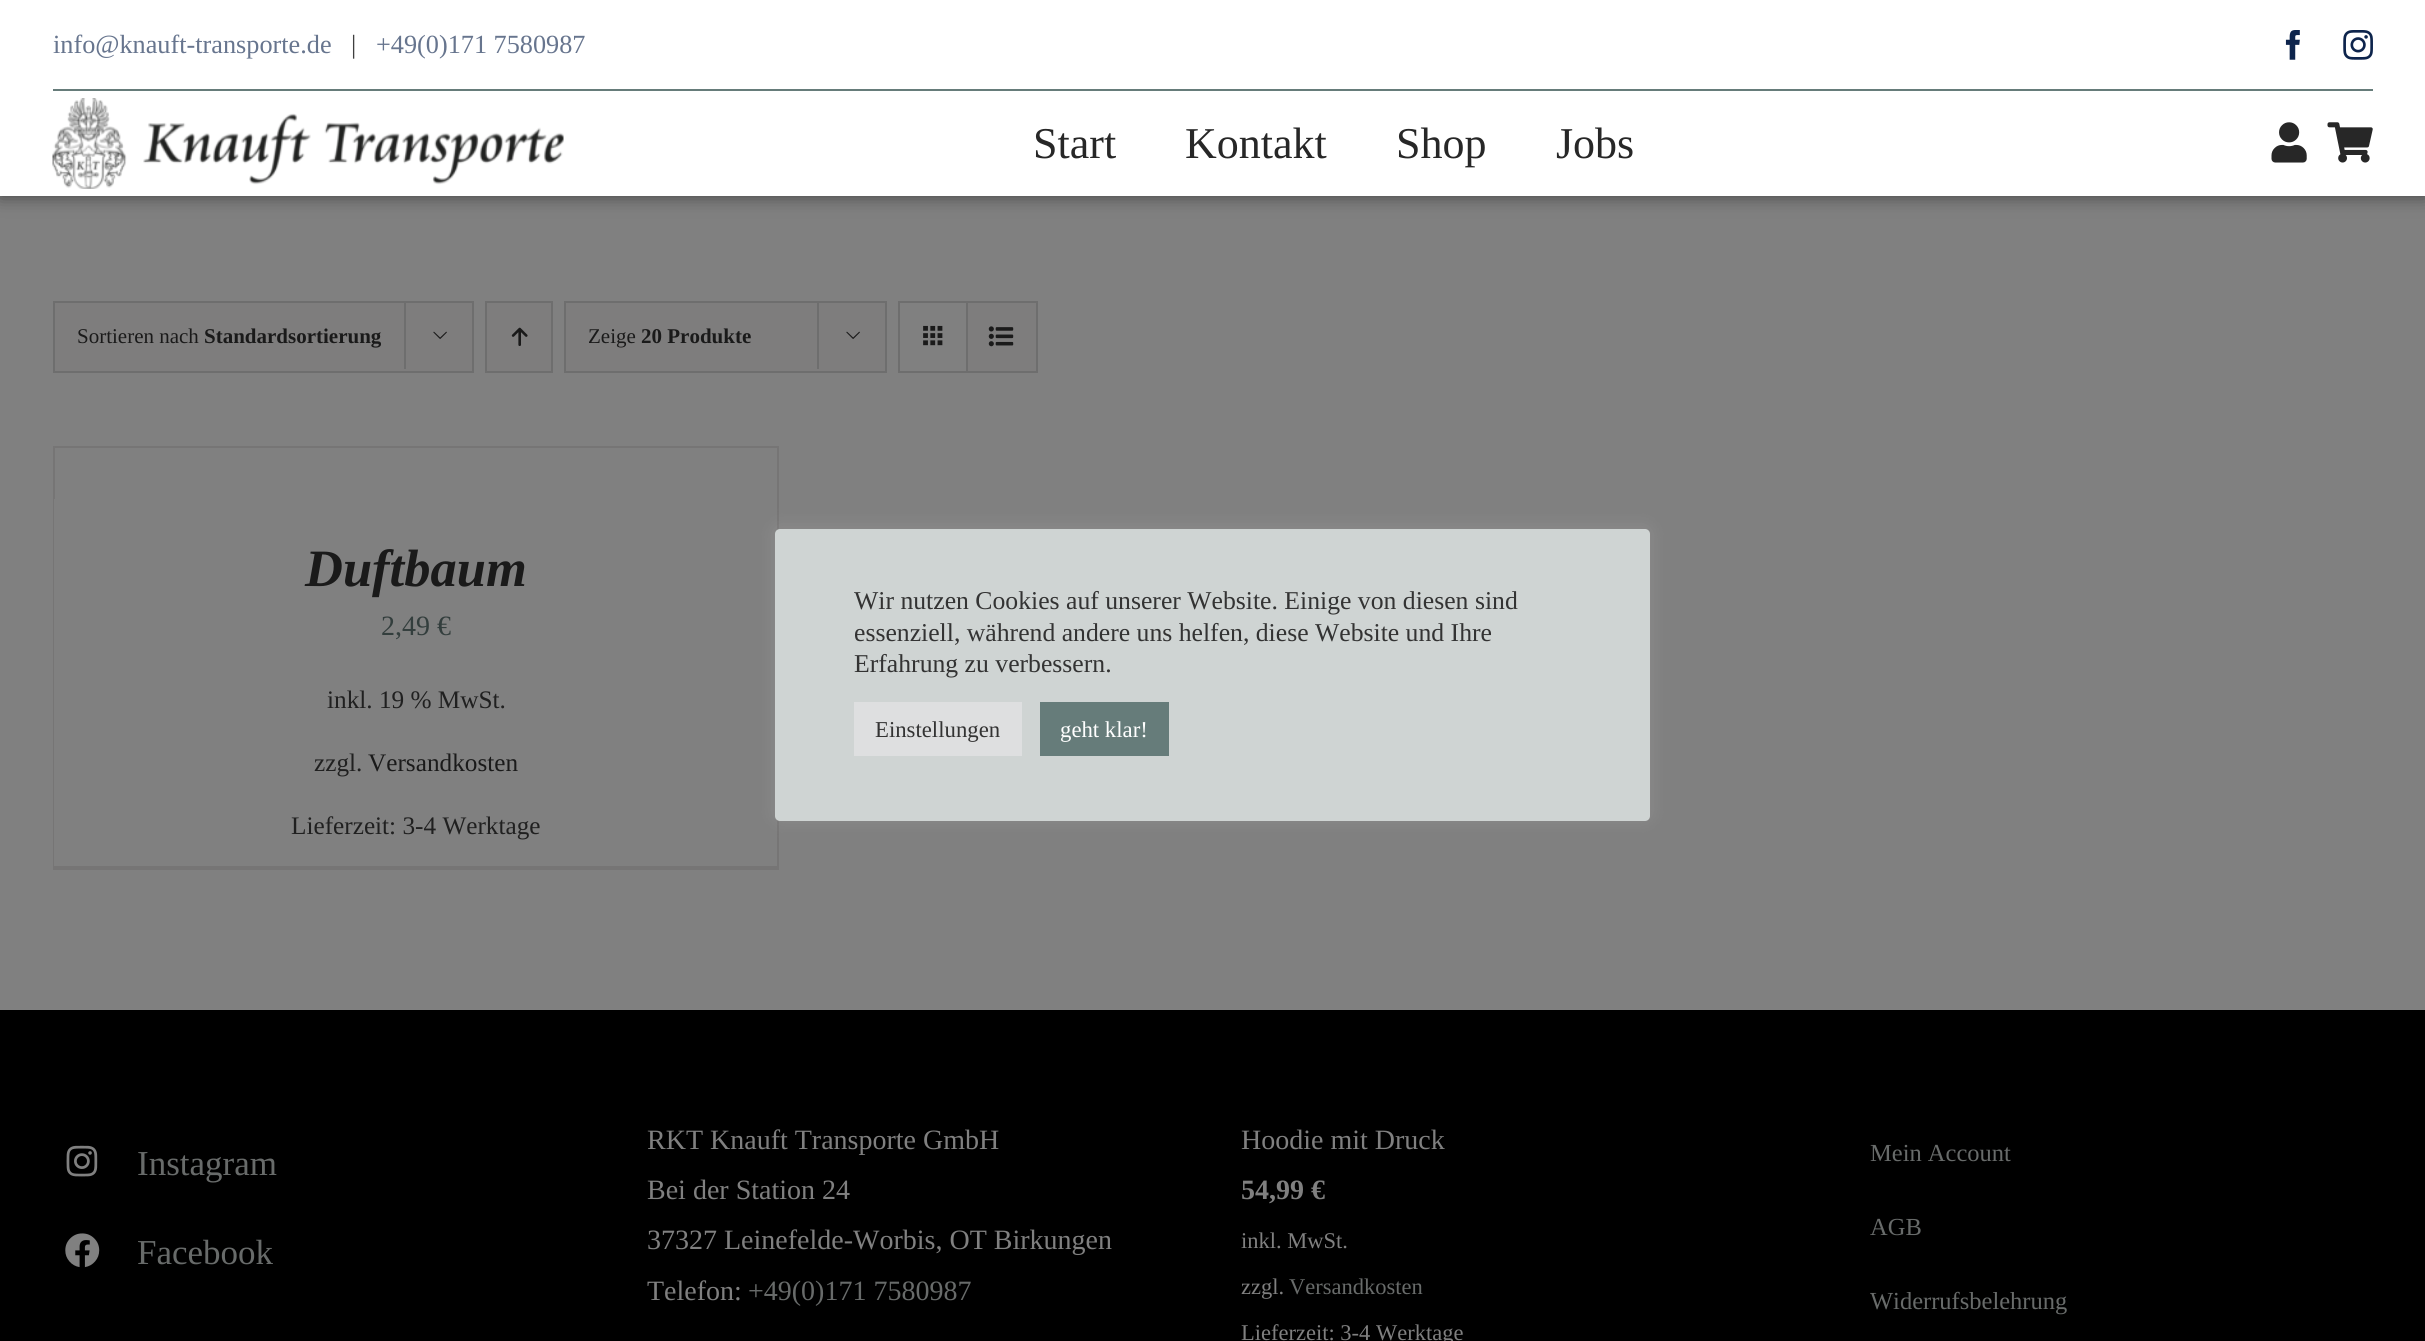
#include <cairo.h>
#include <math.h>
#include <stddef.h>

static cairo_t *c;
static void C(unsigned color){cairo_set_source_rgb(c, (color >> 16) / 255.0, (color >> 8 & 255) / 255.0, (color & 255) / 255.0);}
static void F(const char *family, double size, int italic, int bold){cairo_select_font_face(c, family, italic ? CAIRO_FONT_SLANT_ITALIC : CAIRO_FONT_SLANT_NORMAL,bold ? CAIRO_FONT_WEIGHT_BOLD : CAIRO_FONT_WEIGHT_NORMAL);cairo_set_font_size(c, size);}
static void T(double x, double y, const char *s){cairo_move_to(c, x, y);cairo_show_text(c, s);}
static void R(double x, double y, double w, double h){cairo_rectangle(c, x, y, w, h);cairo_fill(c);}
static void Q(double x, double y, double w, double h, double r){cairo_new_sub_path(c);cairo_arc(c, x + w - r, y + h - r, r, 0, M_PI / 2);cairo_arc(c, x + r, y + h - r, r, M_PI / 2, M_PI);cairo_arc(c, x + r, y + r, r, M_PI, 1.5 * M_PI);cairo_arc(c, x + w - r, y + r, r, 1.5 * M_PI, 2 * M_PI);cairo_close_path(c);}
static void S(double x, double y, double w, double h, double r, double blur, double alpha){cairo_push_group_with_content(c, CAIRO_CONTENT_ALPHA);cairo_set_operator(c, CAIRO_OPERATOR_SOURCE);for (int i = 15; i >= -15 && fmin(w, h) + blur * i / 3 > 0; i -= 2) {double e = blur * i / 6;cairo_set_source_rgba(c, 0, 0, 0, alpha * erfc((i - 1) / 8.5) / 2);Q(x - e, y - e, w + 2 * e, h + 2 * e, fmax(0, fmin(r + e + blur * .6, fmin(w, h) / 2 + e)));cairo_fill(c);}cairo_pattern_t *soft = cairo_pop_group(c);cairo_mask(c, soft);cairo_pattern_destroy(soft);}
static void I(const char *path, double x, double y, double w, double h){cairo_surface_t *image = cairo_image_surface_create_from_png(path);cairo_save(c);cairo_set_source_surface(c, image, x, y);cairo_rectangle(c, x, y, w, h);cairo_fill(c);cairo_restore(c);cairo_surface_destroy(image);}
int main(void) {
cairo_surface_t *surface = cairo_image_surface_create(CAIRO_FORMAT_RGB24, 2425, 1341);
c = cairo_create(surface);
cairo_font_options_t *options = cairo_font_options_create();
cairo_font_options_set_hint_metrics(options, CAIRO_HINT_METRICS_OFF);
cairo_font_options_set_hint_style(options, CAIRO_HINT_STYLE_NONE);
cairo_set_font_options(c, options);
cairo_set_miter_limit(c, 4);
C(0x808080);
cairo_paint(c);
C(0x000000);
S(0,91,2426,105,0,9,.5);
C(0xffffff);
R(0,0,2425,196);
F("Liberation Serif",26.25,0,0);
C(0x67758e);
T(53,53,"info@knauft-transporte.de");
C(0x3f3f3f);
T(351,53,"|");
C(0x67758e);
T(376,53,"+49(0)171 7580987");
I("1.png",2285,30,15,30);
I("2.png",2343,30,30,30);
C(0x667c7a);
R(53,89,2320,2);
I("3.png",52,98,512,91);
F("Liberation Serif",44,0,0);
C(0x272727);
T(1033,158,"Start");
T(1185,158,"Kontakt");
T(1396,158,"Shop");
T(1556,158,"Jobs");
I("4.png",2271,122,36,41);
I("5.png",2327,122,46,41);
C(0x7e7d7d);
cairo_rectangle(c,54,302,419,70);
cairo_fill_preserve(c);
C(0x6e6e6e);
cairo_stroke(c);
F("Liberation Serif",21,0,0);
C(0x1a1a1a);
T(77,343,"Sortieren nach");
F("Liberation Serif",21,0,1);
T(204,343,"Standardsortierung");
C(0x6e6e6e);
R(404,301,2,68);
I("6.png",433,331,14,8);
C(0x7e7d7d);
cairo_rectangle(c,486,302,66,70);
cairo_fill_preserve(c);
C(0x6e6e6e);
cairo_stroke(c);
I("7.png",511,327,17,19);
C(0x7e7d7d);
cairo_rectangle(c,565,302,321,70);
cairo_fill_preserve(c);
C(0x6e6e6e);
cairo_stroke(c);
F("Liberation Serif",21,0,0);
C(0x1a1a1a);
T(588,343,"Zeige");
F("Liberation Serif",21,0,1);
T(641,343,"20 Produkte");
C(0x6e6e6e);
R(817,301,2,68);
I("6.png",846,331,14,8);
cairo_rectangle(c,899,302,138,70);
cairo_stroke(c);
R(966,303,2,68);
I("8.png",923,325,20,21);
C(0x7e7d7d);
R(968,303,68,68);
I("9.png",988,326,26,21);
C(0x767575);
R(53,446,726,2);
R(777,446,2,424);
R(53,866,726,4);
R(53,446,2,424);
C(0x808080);
R(54,499,1,367);
F("Liberation Serif",52.5,1,1);
C(0x1a1a1a);
T(305,586,"Duftbaum");
F("Liberation Serif",28,0,0);
C(0x333e3d);
T(381,635,"2,49 €");
F("Liberation Serif",25.25,0,0);
C(0x202020);
T(327,708,"inkl. 19 % MwSt.");
T(314,771,"zzgl.");
C(0x1a1a1a);
T(368,771,"Versandkosten");
C(0x202020);
T(291,834,"Lieferzeit: 3-4 Werktage");
C(0x000000);
R(0,1010,2425,331);
I("10.png",66,1145,32,32);
F("Liberation Serif",35,0,0);
C(0x686b6a);
T(137,1175,"Instagram");
I("11.png",65,1233,35,35);
T(137,1264,"Facebook");
F("Liberation Serif",28,0,0);
C(0x808080);
T(647,1149,"RKT Knauft Transporte GmbH");
T(647,1199,"Bei der Station 24");
T(647,1249,"37327 Leinefelde-Worbis, OT Birkungen");
T(647,1300,"Telefon:");
C(0x686b6a);
T(748,1300,"+49(0)171 7580987");
C(0x808080);
T(1241,1149,"Hoodie mit Druck");
F("Liberation Serif",28,0,1);
T(1241,1199,"54,99 €");
F("Liberation Serif",22.5,0,0);
T(1241,1248,"inkl. MwSt.");
T(1241,1294,"zzgl.");
C(0x686b6a);
T(1289,1294,"Versandkosten");
C(0x808080);
T(1241,1340,"Lieferzeit: 3-4 Werktage");
F("Liberation Serif",24.5,0,0);
C(0x686b6a);
T(1870,1161,"Mein Account");
T(1870,1235,"AGB");
T(1870,1309,"Widerrufsbelehrung");
C(0xacabab);
S(775,527,875,292,5,9,.3);
C(0xcfd4d3);
Q(775,529,875,292,5);
cairo_fill(c);
F("Liberation Serif",25.7,0,0);
C(0x333333);
T(854,609,"Wir nutzen Cookies auf unserer Website. Einige von diesen sind");
T(854,641,"essenziell, während andere uns helfen, diese Website und Ihre");
T(854,672,"Erfahrung zu verbessern.");
C(0xdedfe0);
R(854,702,168,54);
F("Liberation Serif",22.75,0,0);
C(0x333333);
T(875,737,"Einstellungen");
C(0x667c7a);
R(1040,702,129,54);
C(0xffffff);
T(1060,737,"geht klar!");
cairo_surface_write_to_png(surface, "o.png");
cairo_font_options_destroy(options);
cairo_destroy(c);
cairo_surface_destroy(surface);
return 0;
}
